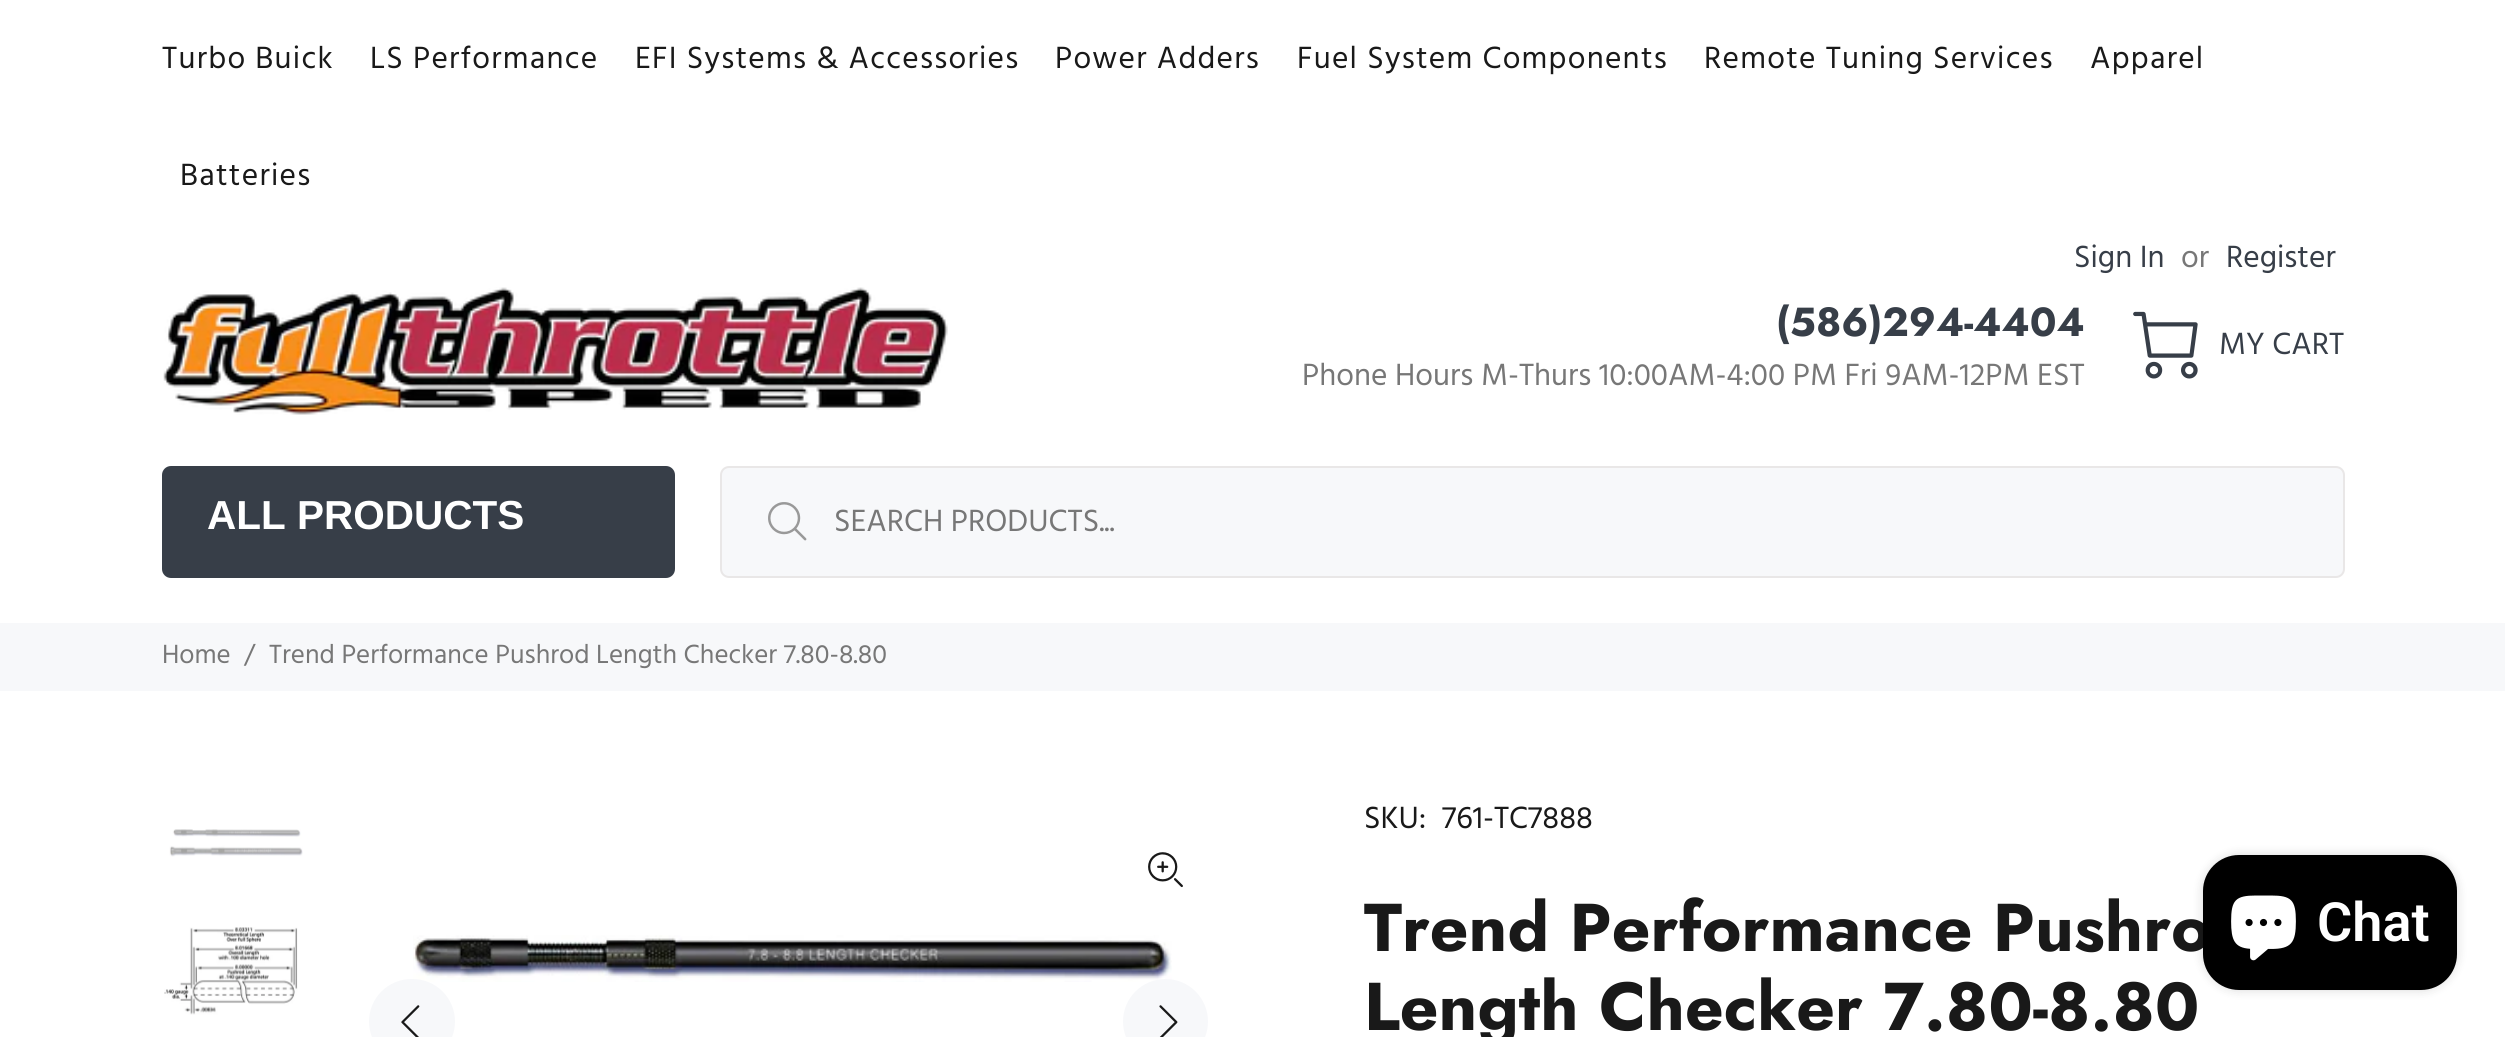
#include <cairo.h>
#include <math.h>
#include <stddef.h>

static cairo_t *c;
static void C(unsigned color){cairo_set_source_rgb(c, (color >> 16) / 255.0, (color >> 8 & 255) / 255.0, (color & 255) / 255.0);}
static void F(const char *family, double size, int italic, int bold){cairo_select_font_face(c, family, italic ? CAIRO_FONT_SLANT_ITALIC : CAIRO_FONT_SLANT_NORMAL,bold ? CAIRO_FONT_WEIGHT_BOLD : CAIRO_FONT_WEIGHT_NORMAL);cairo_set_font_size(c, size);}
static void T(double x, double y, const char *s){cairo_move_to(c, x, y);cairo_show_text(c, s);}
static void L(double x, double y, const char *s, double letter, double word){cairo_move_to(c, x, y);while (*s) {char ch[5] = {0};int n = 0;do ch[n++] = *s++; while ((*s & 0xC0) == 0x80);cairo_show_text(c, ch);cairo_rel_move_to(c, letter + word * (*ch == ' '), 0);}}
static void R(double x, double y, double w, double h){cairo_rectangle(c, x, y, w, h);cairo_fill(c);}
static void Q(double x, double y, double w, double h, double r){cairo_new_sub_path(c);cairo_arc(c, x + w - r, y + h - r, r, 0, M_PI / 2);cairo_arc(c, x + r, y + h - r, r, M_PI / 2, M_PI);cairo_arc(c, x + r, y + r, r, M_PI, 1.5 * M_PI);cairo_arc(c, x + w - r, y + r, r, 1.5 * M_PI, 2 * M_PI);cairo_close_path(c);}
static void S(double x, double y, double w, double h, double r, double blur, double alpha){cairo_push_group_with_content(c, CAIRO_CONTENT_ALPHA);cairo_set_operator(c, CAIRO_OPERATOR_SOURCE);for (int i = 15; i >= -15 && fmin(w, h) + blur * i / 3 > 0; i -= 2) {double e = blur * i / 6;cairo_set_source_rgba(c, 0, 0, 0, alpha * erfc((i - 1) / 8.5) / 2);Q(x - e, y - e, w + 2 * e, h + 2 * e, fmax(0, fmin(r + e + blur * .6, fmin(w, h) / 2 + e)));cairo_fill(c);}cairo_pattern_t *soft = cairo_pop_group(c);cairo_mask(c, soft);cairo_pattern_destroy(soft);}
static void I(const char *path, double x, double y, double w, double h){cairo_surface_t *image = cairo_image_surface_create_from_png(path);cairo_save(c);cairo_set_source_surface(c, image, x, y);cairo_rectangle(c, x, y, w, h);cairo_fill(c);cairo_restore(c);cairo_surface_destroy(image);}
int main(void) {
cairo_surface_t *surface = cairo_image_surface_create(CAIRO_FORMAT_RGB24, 2505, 1037);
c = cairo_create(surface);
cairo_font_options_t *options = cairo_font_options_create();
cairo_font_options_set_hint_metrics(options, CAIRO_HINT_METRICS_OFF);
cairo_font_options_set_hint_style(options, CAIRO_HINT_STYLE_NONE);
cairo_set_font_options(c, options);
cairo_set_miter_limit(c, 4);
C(0xffffff);
cairo_paint(c);
F("Hind",31.5,0,0);
C(0x191919);
L(162,68,"Turbo Buick",1.25,0);
L(370,68,"LS Performance",1.25,0);
L(635,68,"EFI Systems & Accessories",1.25,0);
L(1055,68,"Power Adders",1.25,0);
L(1297,68,"Fuel System Components",1.25,0);
L(1704,68,"Remote Tuning Services",1.25,0);
L(2090,68,"Apparel",1.25,0);
L(180,185,"Batteries",1.25,0);
C(0x373e48);
T(2074,267,"Sign In");
C(0x777777);
T(2181,267,"or");
C(0x373e48);
T(2226,267,"Register");
I("1.png",163,287,785,128);
F("Jost",40.5,0,1);
T(1776,336,"(586)294-4404");
F("Hind",31.5,0,0);
C(0x777777);
T(1302,385,"Phone Hours M-Thurs 10:00AM-4:00 PM Fri 9AM-12PM EST");
I("2.png",2133,311,65,68);
C(0x373e48);
T(2219,354,"MY CART");
Q(162,466,513,112,9);
cairo_fill(c);
F("Liberation Sans",40.5,0,1);
C(0xffffff);
T(207,529,"ALL PRODUCTS");
C(0xf7f8fa);
Q(721,467,1623,110,8);
cairo_fill_preserve(c);
C(0xe9e7e7);
cairo_stroke(c);
I("3.png",768,502,39,39);
F("Hind",31.5,0,0);
C(0x777777);
T(834,531,"SEARCH PRODUCTS...");
C(0xf7f8fa);
R(0,623,2505,68);
F("Hind",27,0,0);
C(0x777777);
T(162,663,"Home");
T(244,663,"/");
T(269,663,"Trend Performance Pushrod Length Checker 7.80-8.80");
I("4.png",169,829,134,28);
I("5.png",164,927,134,88);
I("6.png",1148,852,35,36);
I("7.png",413,935,759,47);
C(0xf7f8fa);
Q(369,979,86,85,42.5);
cairo_fill(c);
I("8.png",401,1005,19,32);
cairo_arc(c,1165.5,1021.5,42.5,0,2 * M_PI);
cairo_fill(c);
I("9.png",1159,1005,19,32);
F("Hind",31.5,0,0);
C(0x191919);
T(1364,828,"SKU:");
T(1442,828,"761-TC7888");
F("Jost",67.5,0,1);
L(1364,951,"Trend Performance Pushro",.1,0);
L(1364,1030,"Length Checker 7.80-8.80",.1,0);
C(0x000000);
S(2203,855,254,135,36,5.5,.15);
C(0x000000);
Q(2203,855,254,135,36);
cairo_fill(c);
I("10.png",2231,895,65,66);
F("Roboto SemiBold",54,0,0);
C(0xffffff);
T(2317,941,"Chat");
cairo_surface_write_to_png(surface, "o.png");
cairo_font_options_destroy(options);
cairo_destroy(c);
cairo_surface_destroy(surface);
return 0;
}
